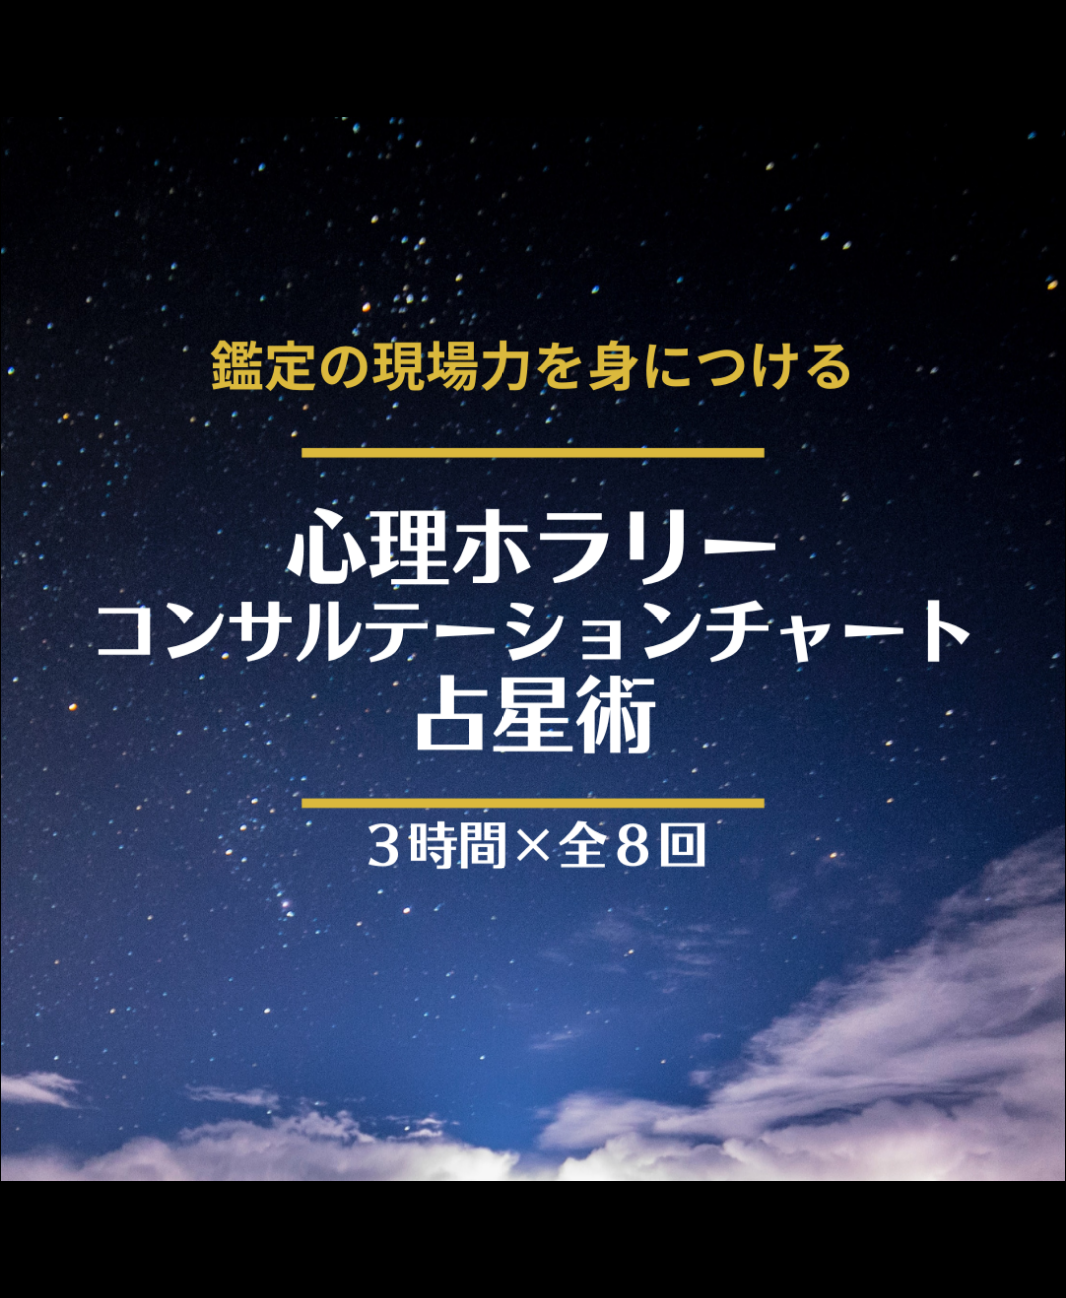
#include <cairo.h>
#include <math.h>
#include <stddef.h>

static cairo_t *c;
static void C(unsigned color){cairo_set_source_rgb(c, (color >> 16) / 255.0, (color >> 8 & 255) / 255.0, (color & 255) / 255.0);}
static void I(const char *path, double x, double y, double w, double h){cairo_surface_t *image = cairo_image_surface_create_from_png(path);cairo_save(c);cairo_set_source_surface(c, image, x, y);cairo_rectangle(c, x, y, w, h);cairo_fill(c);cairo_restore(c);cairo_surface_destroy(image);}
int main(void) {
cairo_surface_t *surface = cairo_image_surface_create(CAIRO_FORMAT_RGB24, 1066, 1298);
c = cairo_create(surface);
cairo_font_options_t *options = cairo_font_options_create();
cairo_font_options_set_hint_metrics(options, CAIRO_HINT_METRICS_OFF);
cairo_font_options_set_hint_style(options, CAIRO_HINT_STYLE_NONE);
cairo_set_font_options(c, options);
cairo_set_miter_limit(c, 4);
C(0x000000);
cairo_paint(c);
I("1.png",1,117,1064,1064);
cairo_surface_write_to_png(surface, "o.png");
cairo_font_options_destroy(options);
cairo_destroy(c);
cairo_surface_destroy(surface);
return 0;
}
